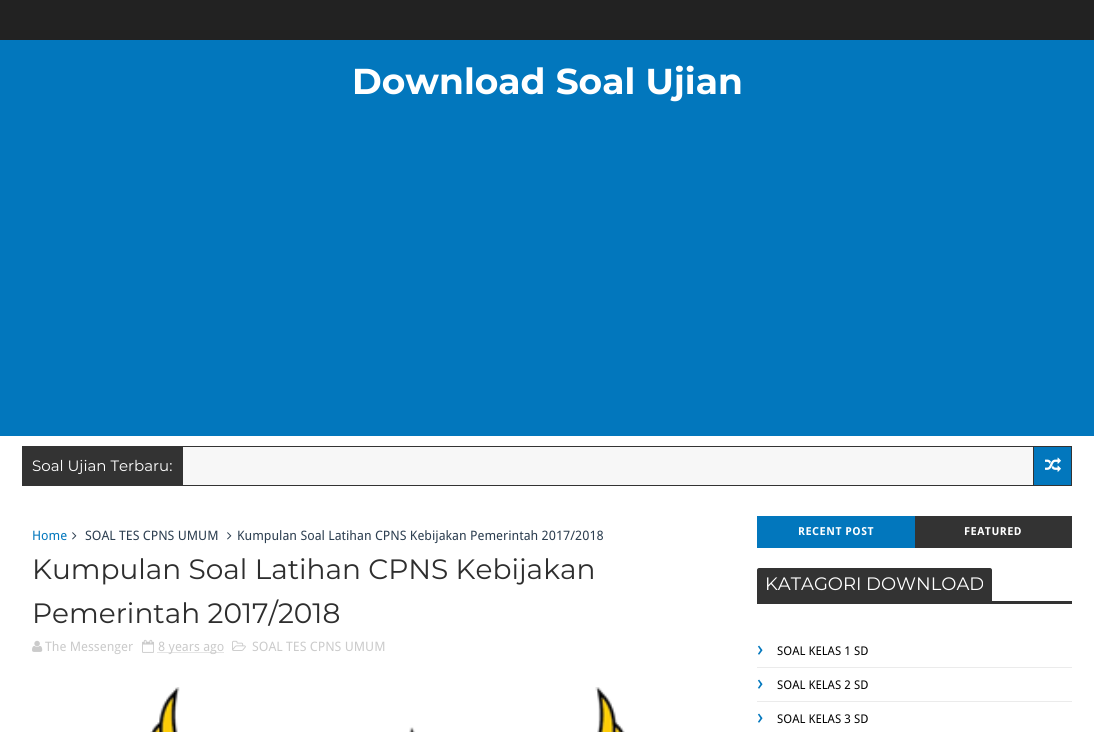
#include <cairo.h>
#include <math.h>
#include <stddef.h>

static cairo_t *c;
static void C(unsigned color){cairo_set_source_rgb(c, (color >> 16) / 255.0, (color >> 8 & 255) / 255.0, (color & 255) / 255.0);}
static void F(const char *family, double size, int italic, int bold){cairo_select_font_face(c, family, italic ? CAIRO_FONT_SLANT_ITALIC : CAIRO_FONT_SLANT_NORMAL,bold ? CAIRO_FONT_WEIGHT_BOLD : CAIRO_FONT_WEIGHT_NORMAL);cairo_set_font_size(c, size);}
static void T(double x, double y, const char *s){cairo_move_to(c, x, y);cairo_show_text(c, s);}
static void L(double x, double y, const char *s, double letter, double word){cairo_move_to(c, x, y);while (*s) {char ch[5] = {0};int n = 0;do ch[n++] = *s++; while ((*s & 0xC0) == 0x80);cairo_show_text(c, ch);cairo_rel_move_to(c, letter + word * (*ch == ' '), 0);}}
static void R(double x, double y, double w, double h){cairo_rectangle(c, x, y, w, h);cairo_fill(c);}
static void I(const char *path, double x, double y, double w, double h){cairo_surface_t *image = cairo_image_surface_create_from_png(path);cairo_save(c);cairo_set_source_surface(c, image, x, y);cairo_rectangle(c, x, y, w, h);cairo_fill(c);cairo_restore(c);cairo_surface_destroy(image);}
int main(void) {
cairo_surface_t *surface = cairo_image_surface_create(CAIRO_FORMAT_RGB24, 1094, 732);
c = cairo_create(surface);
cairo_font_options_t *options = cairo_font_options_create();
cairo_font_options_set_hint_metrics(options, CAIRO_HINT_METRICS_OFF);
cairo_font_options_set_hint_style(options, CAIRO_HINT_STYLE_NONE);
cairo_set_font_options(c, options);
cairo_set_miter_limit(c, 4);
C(0xffffff);
cairo_paint(c);
C(0x0277bd);
R(0,40,1094,396);
C(0x222222);
R(0,0,1094,40);
F("Montserrat",36,0,1);
C(0xffffff);
T(352,94,"Download Soal Ujian");
C(0xf7f7f7);
R(183,447,850,38);
C(0x333333);
R(182,446,851,1);
R(182,485,851,1);
R(22,446,161,40);
F("Montserrat",15,0,0);
C(0xffffff);
T(32,471,"Soal Ujian Terbaru:");
C(0x0277bd);
cairo_rectangle(c,1033.5,446.5,38,39);
cairo_fill_preserve(c);
C(0x333333);
cairo_set_line_width(c,1);
cairo_stroke(c);
I("1.png",1045,457,16,15);
F("Droid Sans",13,0,0);
C(0x0277bd);
T(32,540,"Home");
I("2.png",72,532,5,8);
C(0x2c3e50);
T(85,540,"SOAL TES CPNS UMUM");
I("2.png",227,532,5,8);
T(237,540,"Kumpulan Soal Latihan CPNS Kebijakan Pemerintah 2017/2018");
F("Montserrat",28,0,0);
C(0x2e2e2e);
T(32,579,"Kumpulan Soal Latihan CPNS Kebijakan");
T(32,623,"Pemerintah 2017/2018");
I("3.png",32,640,11,12);
F("Droid Sans",13,0,0);
C(0xcbcbcb);
T(45,651,"The Messenger");
I("4.png",142,639,12,14);
cairo_new_path(c);
cairo_move_to(c,157.5,652.5);
cairo_line_to(c,224,652.5);
cairo_set_dash(c,(double[]){1,1},2,0);
cairo_stroke(c);
T(158,651,"8 years ago");
I("5.png",232,640,14,11);
T(252,651,"SOAL TES CPNS UMUM");
I("6.png",150,687,475,45);
C(0x0277bd);
R(757,516,158,32);
F("Droid Sans",11,0,1);
C(0xffffff);
L(798,535,"RECENT POST",.5,0);
C(0x333333);
R(915,516,157,32);
C(0xffffff);
L(964,535,"FEATURED",.5,0);
C(0x333333);
R(757,601,315,3);
cairo_new_path(c);
cairo_move_to(c,759,568);
cairo_line_to(c,990,568);
cairo_curve_to(c,991,568,992,569,992,570);
cairo_line_to(c,992,601);
cairo_line_to(c,757,601);
cairo_line_to(c,757,570);
cairo_curve_to(c,757,569,758,568,759,568);
cairo_close_path(c);
cairo_fill(c);
F("Montserrat",18,0,0);
C(0xffffff);
T(765,590,"KATAGORI DOWNLOAD");
C(0xebebeb);
R(757,667,315,1);
F("Droid Sans",22,0,0);
C(0x0277bd);
T(757,656,"›");
F("Droid Sans",12,0,0);
C(0x020202);
T(777,655,"SOAL KELAS 1 SD");
C(0xebebeb);
R(757,701,315,1);
F("Droid Sans",22,0,0);
C(0x0277bd);
T(757,690,"›");
F("Droid Sans",12,0,0);
C(0x020202);
T(777,689,"SOAL KELAS 2 SD");
F("Droid Sans",22,0,0);
C(0x0277bd);
T(757,724,"›");
F("Droid Sans",12,0,0);
C(0x020202);
T(777,723,"SOAL KELAS 3 SD");
cairo_surface_write_to_png(surface, "o.png");
cairo_font_options_destroy(options);
cairo_destroy(c);
cairo_surface_destroy(surface);
return 0;
}
